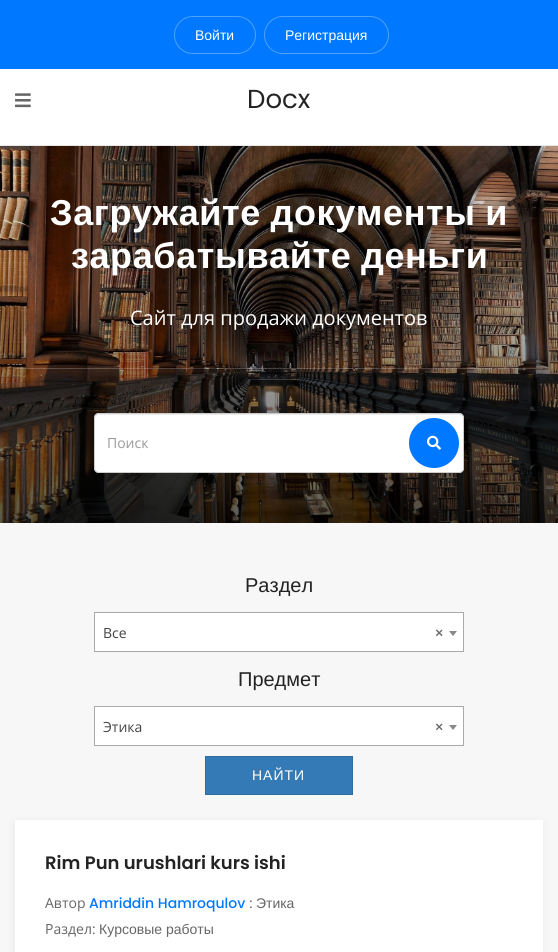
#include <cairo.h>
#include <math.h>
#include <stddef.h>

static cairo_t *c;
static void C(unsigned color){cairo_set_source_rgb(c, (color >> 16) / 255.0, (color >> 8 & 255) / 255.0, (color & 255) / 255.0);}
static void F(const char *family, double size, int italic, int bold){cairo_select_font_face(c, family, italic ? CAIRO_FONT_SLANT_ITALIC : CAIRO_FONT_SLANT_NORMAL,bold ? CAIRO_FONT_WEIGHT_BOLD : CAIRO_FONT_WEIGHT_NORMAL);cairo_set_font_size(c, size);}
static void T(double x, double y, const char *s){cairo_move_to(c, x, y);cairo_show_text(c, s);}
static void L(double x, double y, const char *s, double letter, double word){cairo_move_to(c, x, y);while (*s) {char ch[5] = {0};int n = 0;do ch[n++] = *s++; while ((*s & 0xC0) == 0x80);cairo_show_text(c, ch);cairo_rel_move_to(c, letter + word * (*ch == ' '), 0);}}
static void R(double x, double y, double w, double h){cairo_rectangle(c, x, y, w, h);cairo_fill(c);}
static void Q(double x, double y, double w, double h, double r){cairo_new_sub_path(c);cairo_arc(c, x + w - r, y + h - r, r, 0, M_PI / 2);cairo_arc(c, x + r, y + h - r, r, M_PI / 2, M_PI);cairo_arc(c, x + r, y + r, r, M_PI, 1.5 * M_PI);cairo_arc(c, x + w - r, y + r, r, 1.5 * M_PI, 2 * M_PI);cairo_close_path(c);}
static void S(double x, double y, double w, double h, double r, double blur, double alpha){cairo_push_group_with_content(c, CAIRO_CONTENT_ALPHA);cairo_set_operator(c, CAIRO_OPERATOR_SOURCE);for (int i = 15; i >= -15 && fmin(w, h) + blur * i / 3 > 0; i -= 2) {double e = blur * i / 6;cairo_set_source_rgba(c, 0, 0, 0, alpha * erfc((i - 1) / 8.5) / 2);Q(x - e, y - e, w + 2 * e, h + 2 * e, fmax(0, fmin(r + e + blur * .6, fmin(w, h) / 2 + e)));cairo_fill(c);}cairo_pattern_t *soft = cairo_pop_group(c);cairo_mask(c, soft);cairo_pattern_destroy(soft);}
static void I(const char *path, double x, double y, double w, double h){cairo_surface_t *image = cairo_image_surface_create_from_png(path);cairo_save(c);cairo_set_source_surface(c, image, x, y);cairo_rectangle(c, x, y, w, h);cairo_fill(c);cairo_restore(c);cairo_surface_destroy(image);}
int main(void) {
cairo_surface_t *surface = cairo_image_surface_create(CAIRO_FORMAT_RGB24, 558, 952);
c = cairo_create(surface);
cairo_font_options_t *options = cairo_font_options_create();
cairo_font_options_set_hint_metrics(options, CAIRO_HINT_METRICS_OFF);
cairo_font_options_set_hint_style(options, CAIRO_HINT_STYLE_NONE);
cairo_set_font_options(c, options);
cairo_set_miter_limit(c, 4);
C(0xffffff);
cairo_paint(c);
C(0x0078ff);
R(0,0,558,69);
Q(174.5,16.5,81,37,18.5);
C(0x4da1ff);
cairo_set_line_width(c,1);
cairo_stroke(c);
F("Liberation Sans",14,0,0);
C(0xffffff);
T(195,40,"Войти");
Q(264.5,16.5,124,37,18.5);
C(0x4da1ff);
cairo_stroke(c);
C(0xffffff);
T(285,40,"Регистрация");
C(0xe7e7e7);
R(0,145,558,1);
I("1.png",15,93,16,15);
F("Poppins",26,0,0);
C(0x232323);
T(247,108,"Docx");
I("2.png",0,146,558,377);
F("Liberation Sans",36,0,1);
C(0xffffff);
L(50,225,"Загружайте документы и",.6,-1);
L(71,268,"зарабатывайте деньги",.6,-1);
F("Open Sans",20,0,0);
T(130,325,"Сайт для продажи документов");
cairo_set_source_rgba(c,1,1,1,0.2);
R(15,368,528,1);
C(0xffffff);
Q(94,413,370,60,5);
cairo_fill(c);
C(0xececec);
cairo_new_path(c);
cairo_move_to(c,99,415);
cairo_line_to(c,459,415);
cairo_curve_to(c,461,415,463,417,463,419);
cairo_curve_to(c,463,416,462,414,459,414);
cairo_line_to(c,99,414);
cairo_curve_to(c,96,414,95,416,95,419);
cairo_curve_to(c,95,417,97,415,99,415);
cairo_close_path(c);
cairo_fill(c);
Q(94.5,413.5,369,59,4.5);
C(0xcccccc);
cairo_stroke(c);
F("Open Sans",14,0,0);
C(0x999999);
T(107,448,"Поиск");
C(0x0078ff);
cairo_new_path(c);
cairo_arc(c,434,443,25,0,2 * M_PI);
cairo_fill(c);
I("3.png",427,435,14,15);
C(0xf7f7f7);
R(0,523,558,429);
F("Liberation Sans",20,0,0);
C(0x232323);
T(245,592,"Раздел");
C(0xffffff);
cairo_rectangle(c,94.5,612.5,369,39);
cairo_fill_preserve(c);
C(0xaaaaaa);
cairo_stroke(c);
F("Open Sans",14,0,0);
C(0x444444);
T(103,638,"Все");
F("Open Sans",14,0,1);
C(0x666666);
T(435,638,"×");
C(0x888888);
cairo_new_path(c);
cairo_move_to(c,449,631);
cairo_line_to(c,457,631);
cairo_line_to(c,453,636);
cairo_close_path(c);
cairo_fill(c);
F("Liberation Sans",20,0,0);
C(0x232323);
T(238,686,"Предмет");
C(0xffffff);
cairo_rectangle(c,94.5,706.5,369,39);
cairo_fill_preserve(c);
C(0xaaaaaa);
cairo_stroke(c);
F("Open Sans",14,0,0);
C(0x444444);
T(103,732,"Этика");
F("Open Sans",14,0,1);
C(0x666666);
T(435,732,"×");
C(0x888888);
cairo_new_path(c);
cairo_move_to(c,449,725);
cairo_line_to(c,457,725);
cairo_line_to(c,453,730);
cairo_close_path(c);
cairo_fill(c);
C(0x337ab7);
cairo_rectangle(c,205.5,756.5,147,38);
cairo_fill_preserve(c);
C(0x2e6da4);
cairo_stroke(c);
F("Liberation Sans",14,0,0);
C(0xffffff);
L(252,780,"НАЙТИ",1,0);
C(0x000000);
S(14,823,528,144,0,5,.06);
C(0xffffff);
R(15,820,528,132);
F("Poppins SemiBold",18,0,0);
C(0x232323);
T(45,869,"Rim Pun urushlari kurs ishi");
F("Open Sans",14,0,0);
C(0x666666);
T(45,908,"Автор");
F("Poppins Medium",14,0,0);
C(0x0078ff);
T(89,908,"Amriddin Hamroqulov");
F("Open Sans",14,0,0);
C(0x666666);
T(249,908,":");
F("Liberation Sans",14,0,0);
T(256,908,"Этика");
F("Open Sans",14,0,0);
T(45,934,"Раздел:");
F("Liberation Sans",14,0,0);
T(99,934,"Курсовые работы");
cairo_surface_write_to_png(surface, "o.png");
cairo_font_options_destroy(options);
cairo_destroy(c);
cairo_surface_destroy(surface);
return 0;
}
